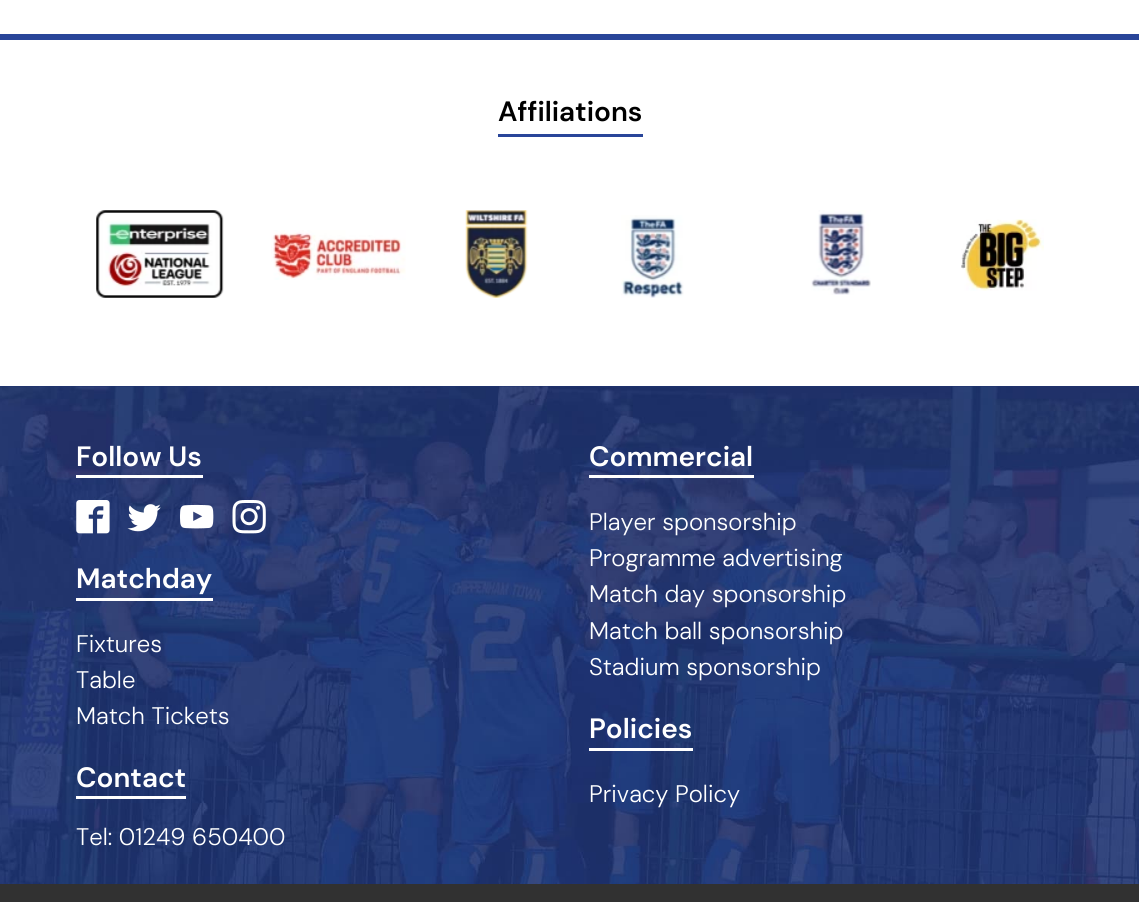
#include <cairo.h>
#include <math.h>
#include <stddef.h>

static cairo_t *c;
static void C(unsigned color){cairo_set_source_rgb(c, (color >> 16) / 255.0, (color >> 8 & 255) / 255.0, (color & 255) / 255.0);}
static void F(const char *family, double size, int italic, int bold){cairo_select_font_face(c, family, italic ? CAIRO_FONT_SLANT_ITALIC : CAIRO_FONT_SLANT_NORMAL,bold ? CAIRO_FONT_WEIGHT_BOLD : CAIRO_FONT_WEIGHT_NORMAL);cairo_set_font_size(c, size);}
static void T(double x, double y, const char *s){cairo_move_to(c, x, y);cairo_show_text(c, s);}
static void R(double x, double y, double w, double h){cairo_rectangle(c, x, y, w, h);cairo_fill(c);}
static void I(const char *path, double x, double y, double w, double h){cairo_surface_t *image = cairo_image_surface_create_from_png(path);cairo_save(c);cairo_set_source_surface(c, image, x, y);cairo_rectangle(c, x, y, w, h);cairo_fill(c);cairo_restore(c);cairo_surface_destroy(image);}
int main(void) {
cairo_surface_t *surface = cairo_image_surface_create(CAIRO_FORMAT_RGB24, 1139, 902);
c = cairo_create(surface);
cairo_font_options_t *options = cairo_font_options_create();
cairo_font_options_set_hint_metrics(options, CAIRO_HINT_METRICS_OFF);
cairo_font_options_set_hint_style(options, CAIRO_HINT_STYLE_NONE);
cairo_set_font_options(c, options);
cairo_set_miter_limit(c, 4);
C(0xffffff);
cairo_paint(c);
C(0x294599);
R(0,34,1139,6);
R(498,134,145,3);
F("DM Sans SemiBold",28,0,0);
C(0x000000);
T(498,121,"Affiliations");
I("1.png",96,210,128,88);
I("2.png",271,230,135,50);
I("3.png",465,210,63,88);
I("4.png",621,215,63,83);
I("5.png",811,210,60,85);
I("6.png",961,219,83,72);
C(0x1e3371);
R(0,386,1139,1);
I("7.png",0,386,1139,498);
C(0xffffff);
R(76,475,127,3);
T(76,466,"Follow Us");
I("8.png",76,500,34,34);
I("9.png",127,504,34,28);
I("10.png",180,504,34,25);
I("11.png",232,500,34,34);
R(76,598,137,3);
T(76,588,"Matchday");
F("DM Sans Light",24,0,0);
T(76,652,"Fixtures");
T(76,688,"Table");
T(76,724,"Match Tickets");
R(76,796,110,3);
F("DM Sans SemiBold",28,0,0);
T(76,787,"Contact");
F("DM Sans Light",24,0,0);
T(76,845,"Tel: 01249 650400");
R(589,475,165,3);
F("DM Sans SemiBold",28,0,0);
T(589,466,"Commercial");
F("DM Sans Light",24,0,0);
T(589,530,"Player sponsorship");
T(589,566,"Programme advertising");
T(589,602,"Match day sponsorship");
T(589,639,"Match ball sponsorship");
T(589,675,"Stadium sponsorship");
R(589,748,104,3);
F("DM Sans SemiBold",28,0,0);
T(589,738,"Policies");
F("DM Sans Light",24,0,0);
T(589,802,"Privacy Policy");
C(0x313131);
R(0,884,1139,18);
cairo_surface_write_to_png(surface, "o.png");
cairo_font_options_destroy(options);
cairo_destroy(c);
cairo_surface_destroy(surface);
return 0;
}
